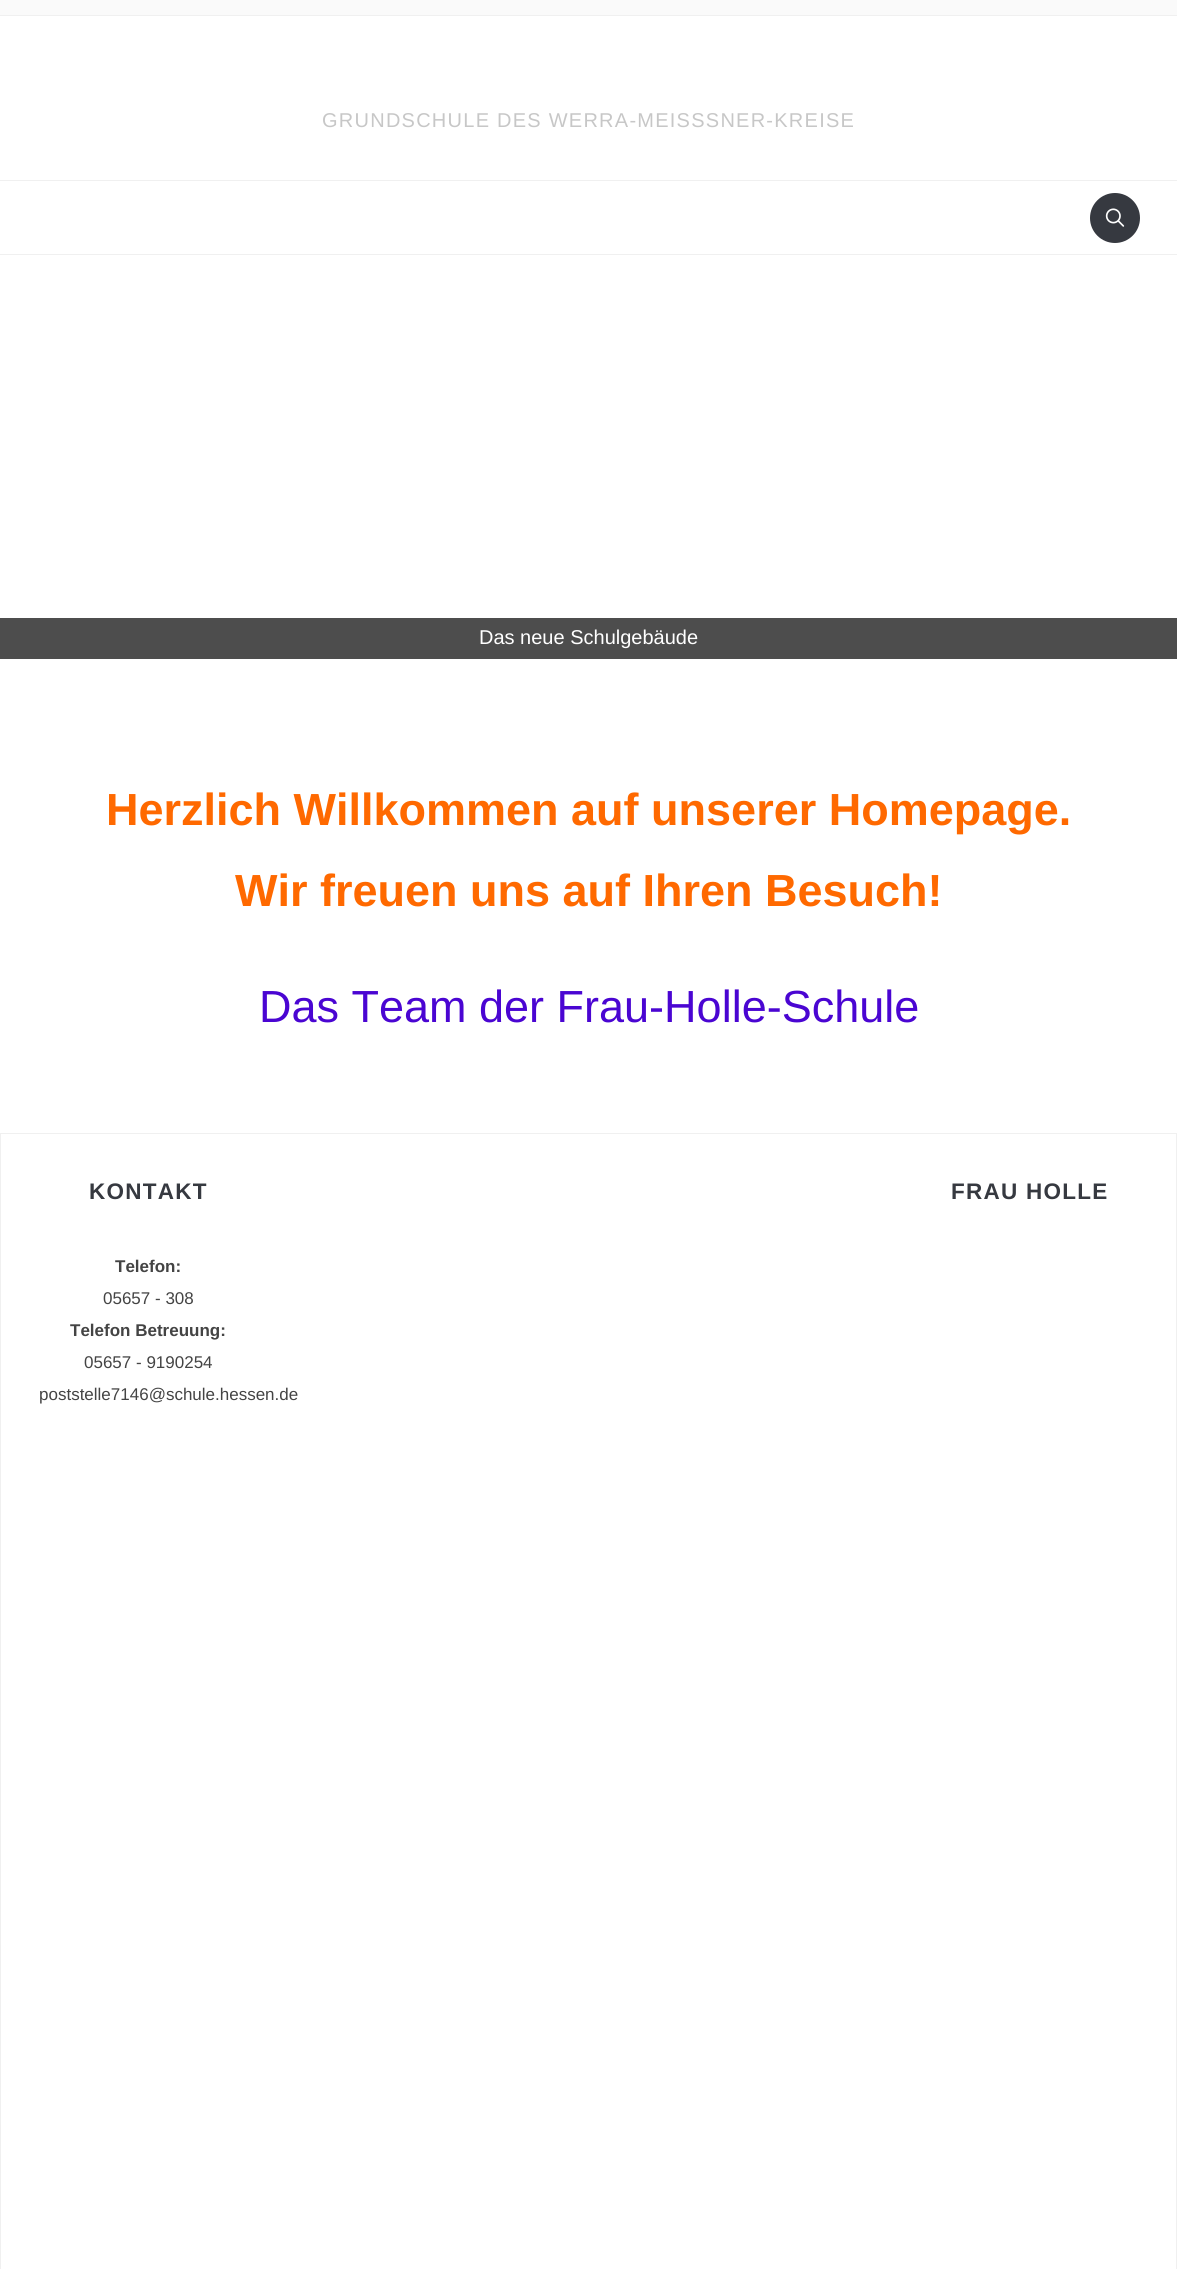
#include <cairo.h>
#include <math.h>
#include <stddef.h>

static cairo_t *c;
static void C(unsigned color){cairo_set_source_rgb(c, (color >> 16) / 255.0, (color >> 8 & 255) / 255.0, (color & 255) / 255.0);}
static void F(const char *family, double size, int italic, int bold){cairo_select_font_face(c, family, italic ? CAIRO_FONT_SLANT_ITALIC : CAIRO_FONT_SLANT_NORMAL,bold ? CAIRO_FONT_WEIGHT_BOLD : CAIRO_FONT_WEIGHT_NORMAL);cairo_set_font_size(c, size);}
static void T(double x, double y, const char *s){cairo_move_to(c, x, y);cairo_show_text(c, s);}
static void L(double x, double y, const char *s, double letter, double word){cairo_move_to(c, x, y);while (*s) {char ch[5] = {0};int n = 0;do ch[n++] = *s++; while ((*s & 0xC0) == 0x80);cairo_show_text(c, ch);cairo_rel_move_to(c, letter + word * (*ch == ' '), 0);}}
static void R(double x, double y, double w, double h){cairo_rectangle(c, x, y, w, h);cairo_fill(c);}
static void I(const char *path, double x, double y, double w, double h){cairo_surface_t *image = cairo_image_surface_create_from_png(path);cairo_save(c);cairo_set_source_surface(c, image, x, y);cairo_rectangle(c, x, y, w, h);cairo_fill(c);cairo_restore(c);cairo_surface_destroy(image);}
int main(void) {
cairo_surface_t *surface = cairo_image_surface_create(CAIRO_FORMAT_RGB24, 1177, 2269);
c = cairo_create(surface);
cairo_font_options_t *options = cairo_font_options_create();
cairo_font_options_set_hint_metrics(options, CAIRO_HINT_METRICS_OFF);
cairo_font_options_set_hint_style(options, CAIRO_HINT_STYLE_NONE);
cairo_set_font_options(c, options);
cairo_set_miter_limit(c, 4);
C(0xffffff);
cairo_paint(c);
C(0xfafafa);
R(0,0,1177,15);
C(0xf0f0f0);
R(0,15,1177,1);
F("Liberation Sans",20,0,0);
C(0xc7c7c7);
L(322,127,"GRUNDSCHULE DES WERRA-MEISSSNER-KREISE",1.25,0);
C(0xf0f0f0);
R(0,180,1177,1);
R(0,254,1177,1);
C(0x363940);
cairo_new_path(c);
cairo_arc(c,1115,218,25,0,2 * M_PI);
cairo_fill(c);
I("1.png",1105,208,20,19);
C(0x4d4d4d);
R(0,618,1177,41);
C(0xffffff);
T(479,644,"Das neue Schulgebäude");
F("Liberation Sans",45,0,1);
C(0xff6900);
T(106,825,"Herzlich Willkommen auf unserer Homepage.");
T(235,906,"Wir freuen uns auf Ihren Besuch!");
F("Liberation Sans",45,0,0);
C(0x4a05d2);
T(259,1022,"Das Team der Frau-Holle-Schule");
C(0xf0f0f0);
R(0,1133,1177,1);
R(1176,1134,1,1135);
R(0,1134,1,1135);
F("Liberation Sans",22.5,0,1);
C(0x363940);
L(89,1199,"KONTAKT",1.25,0);
F("Liberation Sans",17,0,1);
C(0x444444);
T(115,1272,"Telefon:");
F("Liberation Sans",17,0,0);
T(103,1304,"05657 - 308");
F("Liberation Sans",17,0,1);
T(70,1336,"Telefon Betreuung:");
F("Liberation Sans",17,0,0);
T(84,1368,"05657 - 9190254");
T(39,1400,"poststelle7146@schule.hessen.de");
F("Liberation Sans",22.5,0,1);
C(0x363940);
L(951,1199,"FRAU HOLLE",1.25,0);
cairo_surface_write_to_png(surface, "o.png");
cairo_font_options_destroy(options);
cairo_destroy(c);
cairo_surface_destroy(surface);
return 0;
}
